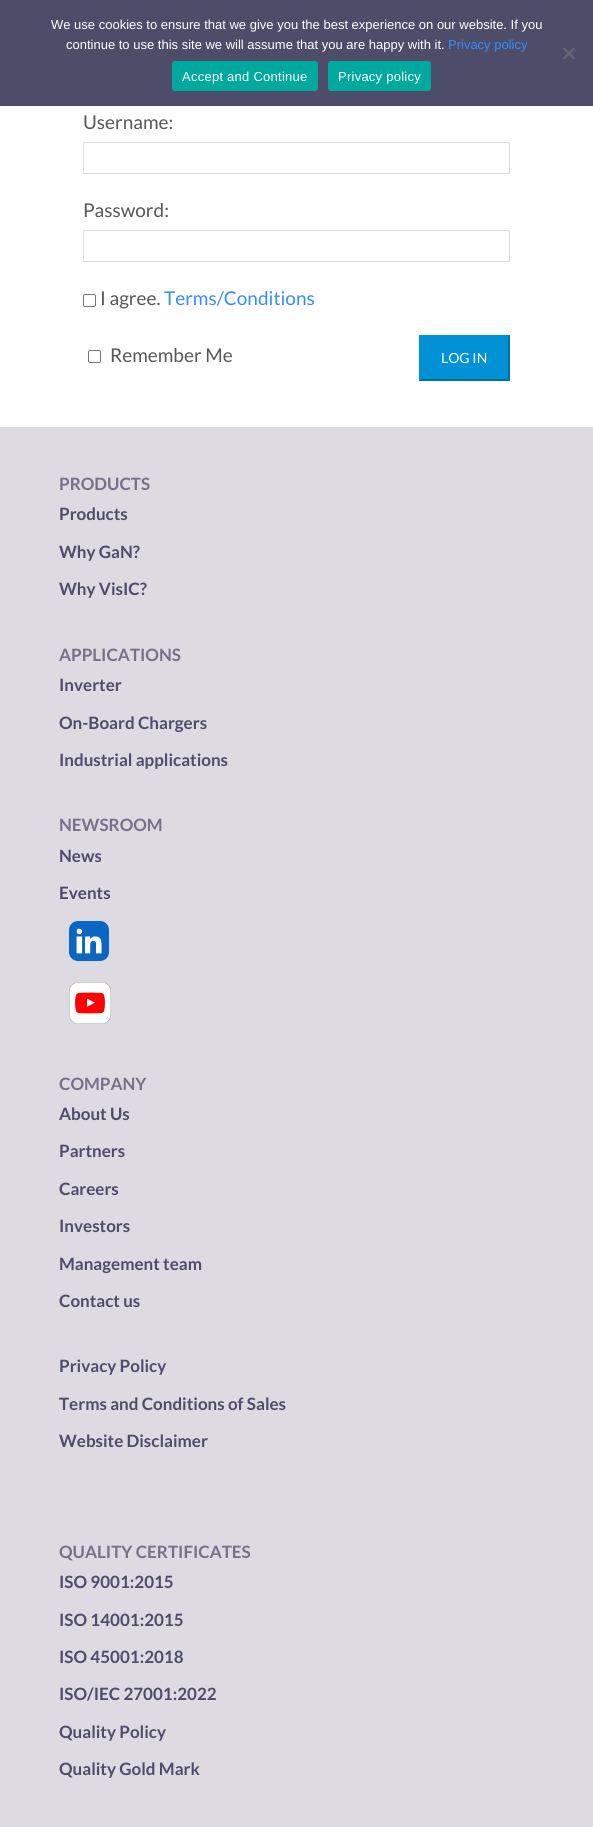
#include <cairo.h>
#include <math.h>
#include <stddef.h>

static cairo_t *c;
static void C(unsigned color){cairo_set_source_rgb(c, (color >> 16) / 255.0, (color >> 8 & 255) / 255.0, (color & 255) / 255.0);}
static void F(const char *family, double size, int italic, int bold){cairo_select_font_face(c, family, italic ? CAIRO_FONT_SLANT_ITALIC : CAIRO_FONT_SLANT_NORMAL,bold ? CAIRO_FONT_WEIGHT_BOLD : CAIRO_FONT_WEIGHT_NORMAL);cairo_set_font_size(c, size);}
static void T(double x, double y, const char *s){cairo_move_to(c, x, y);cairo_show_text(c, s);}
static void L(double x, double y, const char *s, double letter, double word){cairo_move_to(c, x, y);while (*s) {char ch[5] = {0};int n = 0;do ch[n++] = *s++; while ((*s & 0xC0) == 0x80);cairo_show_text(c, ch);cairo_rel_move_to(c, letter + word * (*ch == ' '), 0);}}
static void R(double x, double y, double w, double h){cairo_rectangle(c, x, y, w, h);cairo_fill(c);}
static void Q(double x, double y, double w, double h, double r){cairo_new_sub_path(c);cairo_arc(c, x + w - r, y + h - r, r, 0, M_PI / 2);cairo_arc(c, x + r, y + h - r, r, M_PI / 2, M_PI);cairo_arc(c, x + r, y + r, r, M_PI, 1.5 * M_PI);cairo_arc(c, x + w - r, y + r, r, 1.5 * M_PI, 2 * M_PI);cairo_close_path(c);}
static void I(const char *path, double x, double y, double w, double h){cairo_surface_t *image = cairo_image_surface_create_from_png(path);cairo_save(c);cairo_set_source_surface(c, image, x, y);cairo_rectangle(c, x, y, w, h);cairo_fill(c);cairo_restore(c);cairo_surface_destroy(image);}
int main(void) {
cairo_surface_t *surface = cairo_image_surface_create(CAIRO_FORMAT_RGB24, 593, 1827);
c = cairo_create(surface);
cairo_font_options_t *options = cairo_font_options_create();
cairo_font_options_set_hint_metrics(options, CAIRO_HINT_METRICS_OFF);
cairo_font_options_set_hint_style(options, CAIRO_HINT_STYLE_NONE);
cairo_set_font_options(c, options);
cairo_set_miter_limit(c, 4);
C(0xdddae2);
cairo_paint(c);
C(0x4d4d6a);
R(0,0,593,106);
F("Liberation Sans",13,0,0);
C(0xffffff);
T(51,29,"We use cookies to ensure that we give you the best experience on our website. If you");
T(66,49,"continue to use this site we will assume that you are happy with it.");
C(0x338cff);
T(448,49,"Privacy policy");
C(0x676775);
cairo_new_path(c);
cairo_move_to(c,573.5,47.5);
cairo_line_to(c,575,49);
cairo_line_to(c,564.5,59.5);
cairo_line_to(c,563,58);
cairo_close_path(c);
cairo_fill(c);
cairo_new_path(c);
cairo_move_to(c,563,49);
cairo_line_to(c,564.5,47.5);
cairo_line_to(c,575,58);
cairo_line_to(c,573.5,59.5);
cairo_close_path(c);
cairo_fill(c);
C(0x00a99d);
Q(172,61,146,30,3);
cairo_fill(c);
C(0xffffff);
L(182,81,"Accept and Continue",.25,0);
C(0x00a99d);
Q(328,61,103,30,3);
cairo_fill(c);
C(0xffffff);
L(338,81,"Privacy policy",.25,0);
R(0,106,593,321);
F("Lato",19,0,0);
C(0x575757);
T(83,129,"Username:");
cairo_rectangle(c,83.5,142.5,426,31);
C(0xdddddd);
cairo_set_line_width(c,1);
cairo_stroke(c);
C(0x575757);
T(83,217,"Password:");
cairo_rectangle(c,83.5,230.5,426,31);
C(0xdddddd);
cairo_stroke(c);
Q(83.5,294.5,12,12,1.5);
C(0x767676);
cairo_stroke(c);
C(0x575757);
T(100,305,"I agree.");
C(0x338cff);
T(164,305,"Terms/Conditions");
Q(88.5,350.5,12,12,1.5);
C(0x767676);
cairo_stroke(c);
C(0x575757);
T(110,362,"Remember Me");
C(0x0092d5);
R(419,335,91,46);
C(0x0071a5);
cairo_new_path(c);
cairo_move_to(c,510,335);
cairo_line_to(c,510,381);
cairo_line_to(c,508,379);
cairo_line_to(c,508,337);
cairo_close_path(c);
cairo_fill(c);
cairo_new_path(c);
cairo_move_to(c,510,381);
cairo_line_to(c,419,381);
cairo_line_to(c,421,379);
cairo_line_to(c,508,379);
cairo_close_path(c);
cairo_fill(c);
C(0x0092d5);
cairo_new_path(c);
cairo_move_to(c,419,381);
cairo_line_to(c,419,335);
cairo_line_to(c,421,337);
cairo_line_to(c,421,379);
cairo_close_path(c);
cairo_fill(c);
F("Lato",14,0,0);
C(0xffffff);
T(441,363,"LOG IN");
F("Lato",17,0,1);
C(0x747188);
T(59,490,"PRODUCTS");
C(0x4d4d6a);
T(59,520,"Products");
T(59,558,"Why GaN?");
T(59,595,"Why VisIC?");
C(0x747188);
T(59,661,"APPLICATIONS");
C(0x4d4d6a);
T(59,691,"Inverter");
T(59,729,"On-Board Chargers");
T(59,766,"Industrial applications");
C(0x747188);
T(59,831,"NEWSROOM");
C(0x4d4d6a);
T(59,862,"News");
T(59,899,"Events");
I("1.png",69,921,40,40);
I("2.png",69,982,42,42);
C(0x747188);
T(59,1090,"COMPANY");
C(0x4d4d6a);
T(59,1120,"About Us");
T(59,1157,"Partners");
T(59,1195,"Careers");
T(59,1232,"Investors");
T(59,1270,"Management team");
T(59,1307,"Contact us");
T(59,1372,"Privacy Policy");
T(59,1410,"Terms and Conditions of Sales");
T(59,1447,"Website Disclaimer");
C(0x747188);
T(59,1558,"QUALITY CERTIFICATES");
C(0x4d4d6a);
T(59,1588,"ISO 9001:2015");
T(59,1626,"ISO 14001:2015");
T(59,1663,"ISO 45001:2018");
T(59,1700,"ISO/IEC 27001:2022");
T(59,1738,"Quality Policy");
T(59,1775,"Quality Gold Mark");
cairo_surface_write_to_png(surface, "o.png");
cairo_font_options_destroy(options);
cairo_destroy(c);
cairo_surface_destroy(surface);
return 0;
}
